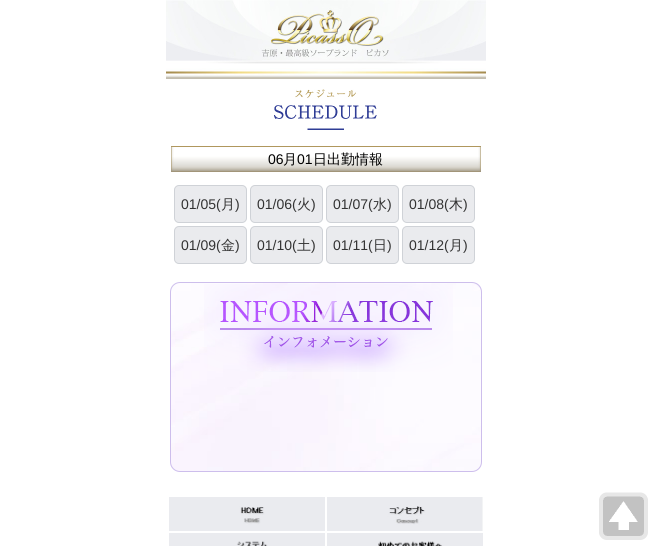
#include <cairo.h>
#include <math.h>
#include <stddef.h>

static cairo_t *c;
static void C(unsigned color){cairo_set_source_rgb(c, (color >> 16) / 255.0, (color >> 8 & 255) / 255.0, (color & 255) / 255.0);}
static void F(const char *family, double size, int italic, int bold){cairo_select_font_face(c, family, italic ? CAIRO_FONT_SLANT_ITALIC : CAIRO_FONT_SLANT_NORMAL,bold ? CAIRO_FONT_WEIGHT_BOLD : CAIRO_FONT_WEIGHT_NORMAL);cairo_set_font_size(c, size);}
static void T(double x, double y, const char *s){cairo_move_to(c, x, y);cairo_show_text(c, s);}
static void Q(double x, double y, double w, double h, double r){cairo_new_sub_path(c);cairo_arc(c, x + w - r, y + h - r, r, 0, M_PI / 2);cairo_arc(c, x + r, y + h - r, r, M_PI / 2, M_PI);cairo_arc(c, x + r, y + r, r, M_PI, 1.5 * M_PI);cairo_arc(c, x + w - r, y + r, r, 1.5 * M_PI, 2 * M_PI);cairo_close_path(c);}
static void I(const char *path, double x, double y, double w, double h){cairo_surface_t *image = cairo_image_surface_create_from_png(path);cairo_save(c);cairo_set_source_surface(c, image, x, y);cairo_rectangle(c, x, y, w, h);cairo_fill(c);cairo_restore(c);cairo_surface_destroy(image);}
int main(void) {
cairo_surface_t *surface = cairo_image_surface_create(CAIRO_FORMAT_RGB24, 651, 546);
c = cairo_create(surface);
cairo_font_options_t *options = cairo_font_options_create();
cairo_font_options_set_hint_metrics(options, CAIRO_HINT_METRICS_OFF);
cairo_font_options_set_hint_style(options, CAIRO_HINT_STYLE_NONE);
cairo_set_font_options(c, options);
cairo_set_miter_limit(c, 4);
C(0xffffff);
cairo_paint(c);
I("1.png",166,0,320,79);
I("2.png",274,89,103,41);
I("3.png",171,146,310,26);
F("Liberation Sans",14,0,0);
C(0x000000);
T(268,164,"06");
F("WenQuanYi Zen Hei Medium",14,0,0);
T(283,164,"月");
F("Liberation Sans",14,0,0);
T(297,164,"01");
F("WenQuanYi Zen Hei Medium",14,0,0);
T(313,164,"日出勤情報");
C(0xeaebee);
Q(174.5,185.5,72,37,4.5);
cairo_fill_preserve(c);
C(0xcfd2d7);
cairo_set_line_width(c,1);
cairo_stroke(c);
F("Liberation Sans",14,0,0);
C(0x333333);
T(181,209,"01/05(");
F("WenQuanYi Zen Hei Medium",14,0,0);
T(221,209,"月");
F("Liberation Sans",14,0,0);
T(235,209,")");
C(0xeaebee);
Q(250.5,185.5,72,37,4.5);
cairo_fill_preserve(c);
C(0xcfd2d7);
cairo_stroke(c);
C(0x333333);
T(257,209,"01/06(");
F("WenQuanYi Zen Hei Medium",14,0,0);
T(297,209,"火");
F("Liberation Sans",14,0,0);
T(311,209,")");
C(0xeaebee);
Q(326.5,185.5,72,37,4.5);
cairo_fill_preserve(c);
C(0xcfd2d7);
cairo_stroke(c);
C(0x333333);
T(333,209,"01/07(");
F("WenQuanYi Zen Hei Medium",14,0,0);
T(373,209,"水");
F("Liberation Sans",14,0,0);
T(387,209,")");
C(0xeaebee);
Q(402.5,185.5,72,37,4.5);
cairo_fill_preserve(c);
C(0xcfd2d7);
cairo_stroke(c);
C(0x333333);
T(409,209,"01/08(");
F("WenQuanYi Zen Hei Medium",14,0,0);
T(449,209,"木");
F("Liberation Sans",14,0,0);
T(463,209,")");
C(0xeaebee);
Q(174.5,226.5,72,37,4.5);
cairo_fill_preserve(c);
C(0xcfd2d7);
cairo_stroke(c);
C(0x333333);
T(181,250,"01/09(");
F("WenQuanYi Zen Hei Medium",14,0,0);
T(221,250,"金");
F("Liberation Sans",14,0,0);
T(235,250,")");
C(0xeaebee);
Q(250.5,226.5,72,37,4.5);
cairo_fill_preserve(c);
C(0xcfd2d7);
cairo_stroke(c);
C(0x333333);
T(257,250,"01/10(");
F("WenQuanYi Zen Hei Medium",14,0,0);
T(297,250,"土");
F("Liberation Sans",14,0,0);
T(311,250,")");
C(0xeaebee);
Q(326.5,226.5,72,37,4.5);
cairo_fill_preserve(c);
C(0xcfd2d7);
cairo_stroke(c);
C(0x333333);
T(333,250,"01/11(");
F("WenQuanYi Zen Hei Medium",14,0,0);
T(373,250,"日");
F("Liberation Sans",14,0,0);
T(387,250,")");
C(0xeaebee);
Q(402.5,226.5,72,37,4.5);
cairo_fill_preserve(c);
C(0xcfd2d7);
cairo_stroke(c);
C(0x333333);
T(409,250,"01/12(");
F("WenQuanYi Zen Hei Medium",14,0,0);
T(449,250,"月");
F("Liberation Sans",14,0,0);
T(463,250,")");
I("4.png",170,283,312,189);
Q(170.5,282.5,311,189,9.5);
C(0xcdbeec);
cairo_stroke(c);
I("5.png",204,284,249,88);
I("6.png",169,497,156,34);
I("7.png",327,497,156,34);
I("8.png",169,533,156,13);
I("9.png",327,533,156,13);
I("10.png",599,492,49,48);
cairo_surface_write_to_png(surface, "o.png");
cairo_font_options_destroy(options);
cairo_destroy(c);
cairo_surface_destroy(surface);
return 0;
}
